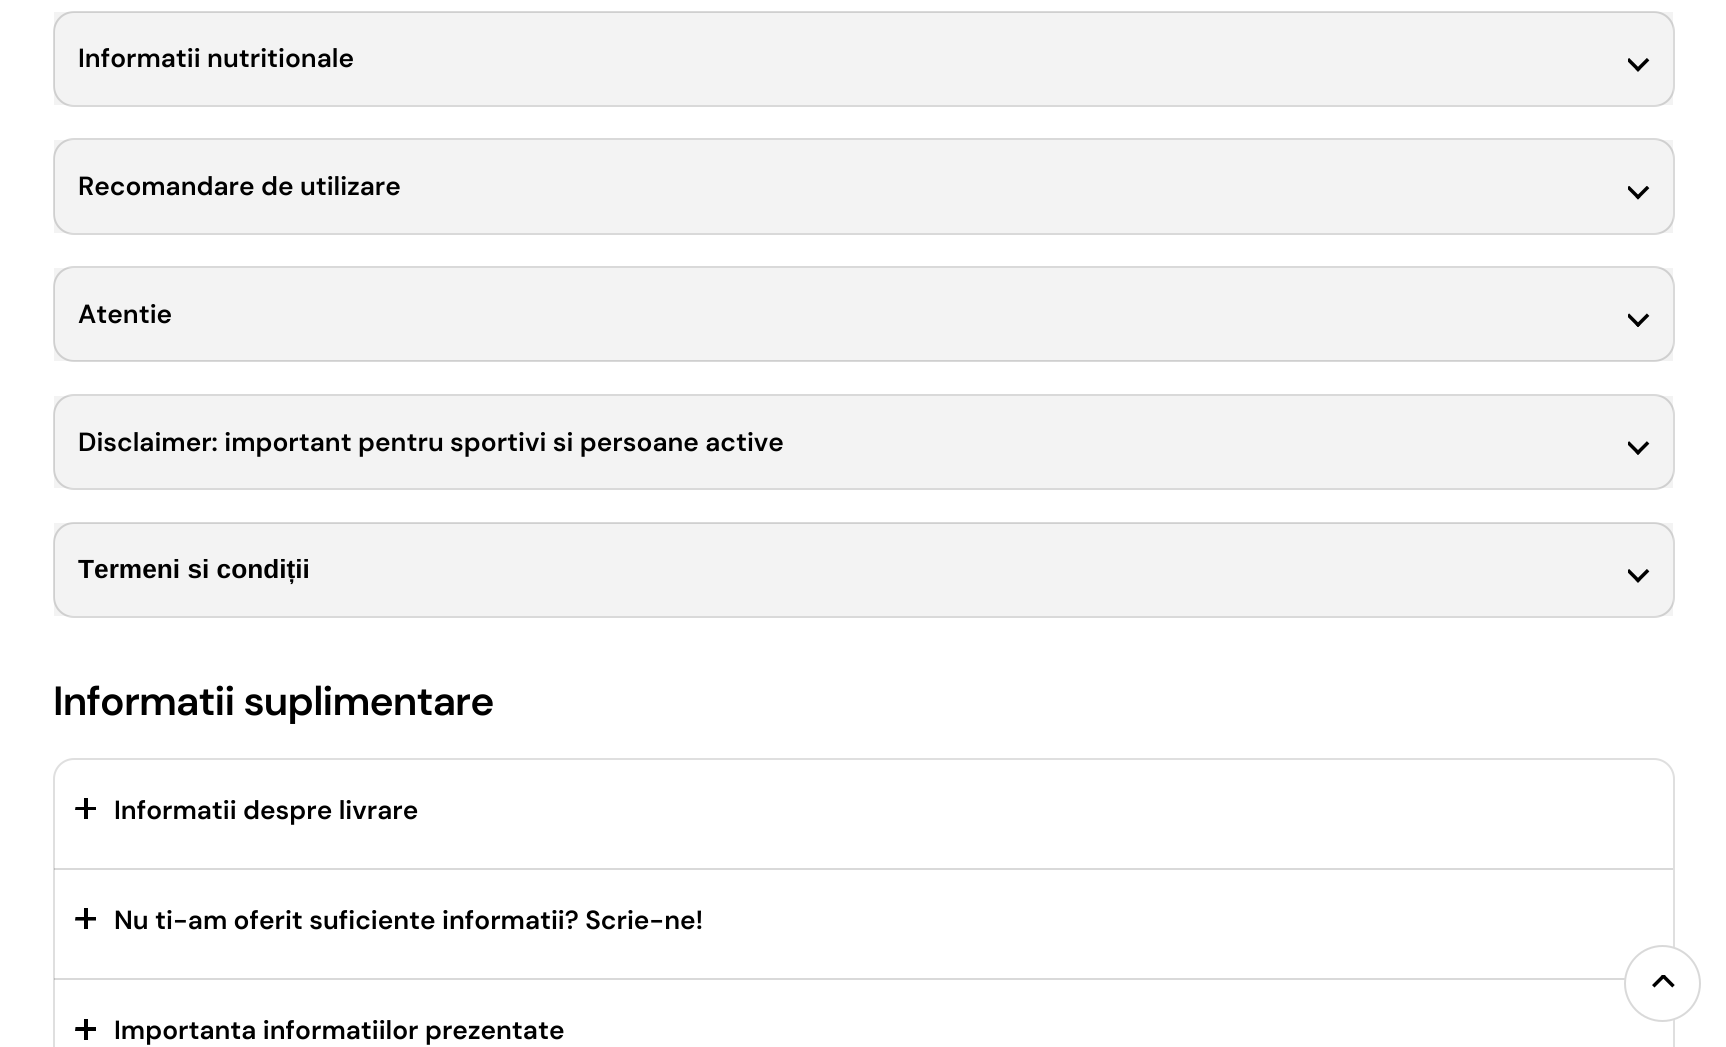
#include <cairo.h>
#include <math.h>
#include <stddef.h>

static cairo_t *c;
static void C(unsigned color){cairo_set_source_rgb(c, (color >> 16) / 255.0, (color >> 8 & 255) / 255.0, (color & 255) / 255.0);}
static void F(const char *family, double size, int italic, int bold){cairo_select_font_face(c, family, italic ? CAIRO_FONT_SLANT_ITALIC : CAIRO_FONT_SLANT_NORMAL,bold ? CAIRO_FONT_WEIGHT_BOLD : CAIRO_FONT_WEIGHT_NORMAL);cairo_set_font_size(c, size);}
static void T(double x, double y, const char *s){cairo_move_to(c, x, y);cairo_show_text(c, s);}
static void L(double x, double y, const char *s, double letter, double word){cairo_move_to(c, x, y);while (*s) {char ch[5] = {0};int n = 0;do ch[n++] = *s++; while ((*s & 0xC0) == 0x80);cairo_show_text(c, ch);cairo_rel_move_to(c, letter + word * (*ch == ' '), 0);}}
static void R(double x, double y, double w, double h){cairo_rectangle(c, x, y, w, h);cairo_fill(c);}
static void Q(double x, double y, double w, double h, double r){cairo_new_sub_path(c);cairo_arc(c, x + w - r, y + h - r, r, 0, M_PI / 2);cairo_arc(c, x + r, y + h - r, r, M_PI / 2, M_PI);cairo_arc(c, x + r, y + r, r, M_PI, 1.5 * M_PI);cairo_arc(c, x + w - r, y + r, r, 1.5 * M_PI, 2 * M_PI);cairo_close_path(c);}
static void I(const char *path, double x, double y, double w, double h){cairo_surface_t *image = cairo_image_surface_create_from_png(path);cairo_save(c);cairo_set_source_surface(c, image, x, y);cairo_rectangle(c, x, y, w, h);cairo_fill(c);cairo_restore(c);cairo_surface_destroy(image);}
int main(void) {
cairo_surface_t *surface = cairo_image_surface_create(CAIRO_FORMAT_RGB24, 1726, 1047);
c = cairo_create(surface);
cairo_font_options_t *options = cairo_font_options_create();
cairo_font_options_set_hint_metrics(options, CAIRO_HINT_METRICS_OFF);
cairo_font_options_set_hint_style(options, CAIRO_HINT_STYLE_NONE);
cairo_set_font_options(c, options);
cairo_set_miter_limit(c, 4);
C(0xffffff);
cairo_paint(c);
Q(54,12,1620,94,20);
C(0xd9d9d9);
cairo_stroke(c);
cairo_set_source_rgba(c,0,0,0,0.05);
R(54,12,1619,93);
F("DM Sans SemiBold",26.25,0,0);
C(0x000000);
T(78,67,"Informatii nutritionale");
I("1.png",1628,58,22,14);
Q(54,139,1620,95,20);
C(0xd9d9d9);
cairo_stroke(c);
cairo_set_source_rgba(c,0,0,0,0.05);
R(54,140,1619,93);
C(0x000000);
T(78,195,"Recomandare de utilizare");
I("2.png",1628,186,22,14);
Q(54,267,1620,94,20);
C(0xd9d9d9);
cairo_stroke(c);
cairo_set_source_rgba(c,0,0,0,0.05);
R(54,268,1619,93);
C(0x000000);
T(78,323,"Atentie");
I("3.png",1628,313,22,14);
Q(54,395,1620,94,20);
C(0xd9d9d9);
cairo_stroke(c);
cairo_set_source_rgba(c,0,0,0,0.05);
R(54,396,1619,92);
C(0x000000);
T(78,451,"Disclaimer: important pentru sportivi si persoane active");
I("4.png",1628,441,22,14);
Q(54,523,1620,94,20);
C(0xd9d9d9);
cairo_stroke(c);
cairo_set_source_rgba(c,0,0,0,0.05);
R(54,523,1619,93);
F("Liberation Sans",26.25,0,1);
C(0x000000);
T(78,578,"Termeni si condiții");
I("1.png",1628,569,22,14);
F("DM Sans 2 SemiBold",40.75,0,0);
L(53,715,"Informatii suplimentare",-.8,0);
Q(54,759,1620,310,20);
C(0xdfdfdf);
cairo_stroke(c);
C(0x000000);
R(84,798,4,21);
cairo_new_path(c);
cairo_move_to(c,96,807);
cairo_line_to(c,96,810);
cairo_line_to(c,75,810);
cairo_line_to(c,75.5,807);
cairo_close_path(c);
cairo_fill(c);
F("DM Sans SemiBold",26.25,0,0);
T(114,819,"Informatii despre livrare");
cairo_set_source_rgba(c,0,0,0,0.15);
R(54,868,1619,2);
C(0x000000);
R(84,908,4,21);
cairo_new_path(c);
cairo_move_to(c,96,917);
cairo_line_to(c,96,920.5);
cairo_line_to(c,75,920.5);
cairo_line_to(c,75.5,917);
cairo_close_path(c);
cairo_fill(c);
T(114,929,"Nu ti-am oferit suficiente informatii? Scrie-ne!");
cairo_set_source_rgba(c,0,0,0,0.15);
R(54,978,1571,2);
C(0x000000);
R(84,1019,4,21);
cairo_new_path(c);
cairo_move_to(c,96,1027);
cairo_line_to(c,96,1031);
cairo_line_to(c,75,1031);
cairo_line_to(c,75.5,1027);
cairo_close_path(c);
cairo_fill(c);
T(114,1039,"Importanta informatiilor prezentate");
C(0xffffff);
cairo_new_path(c);
cairo_arc(c,1662.5,983.5,38.5,0,2 * M_PI);
cairo_fill(c);
cairo_arc(c,1662.5,983.5,37.5,0,2 * M_PI);
cairo_set_source_rgba(c,0,0,0,0.15);
cairo_stroke(c);
I("5.png",1652,975,23,13);
cairo_surface_write_to_png(surface, "o.png");
cairo_font_options_destroy(options);
cairo_destroy(c);
cairo_surface_destroy(surface);
return 0;
}
